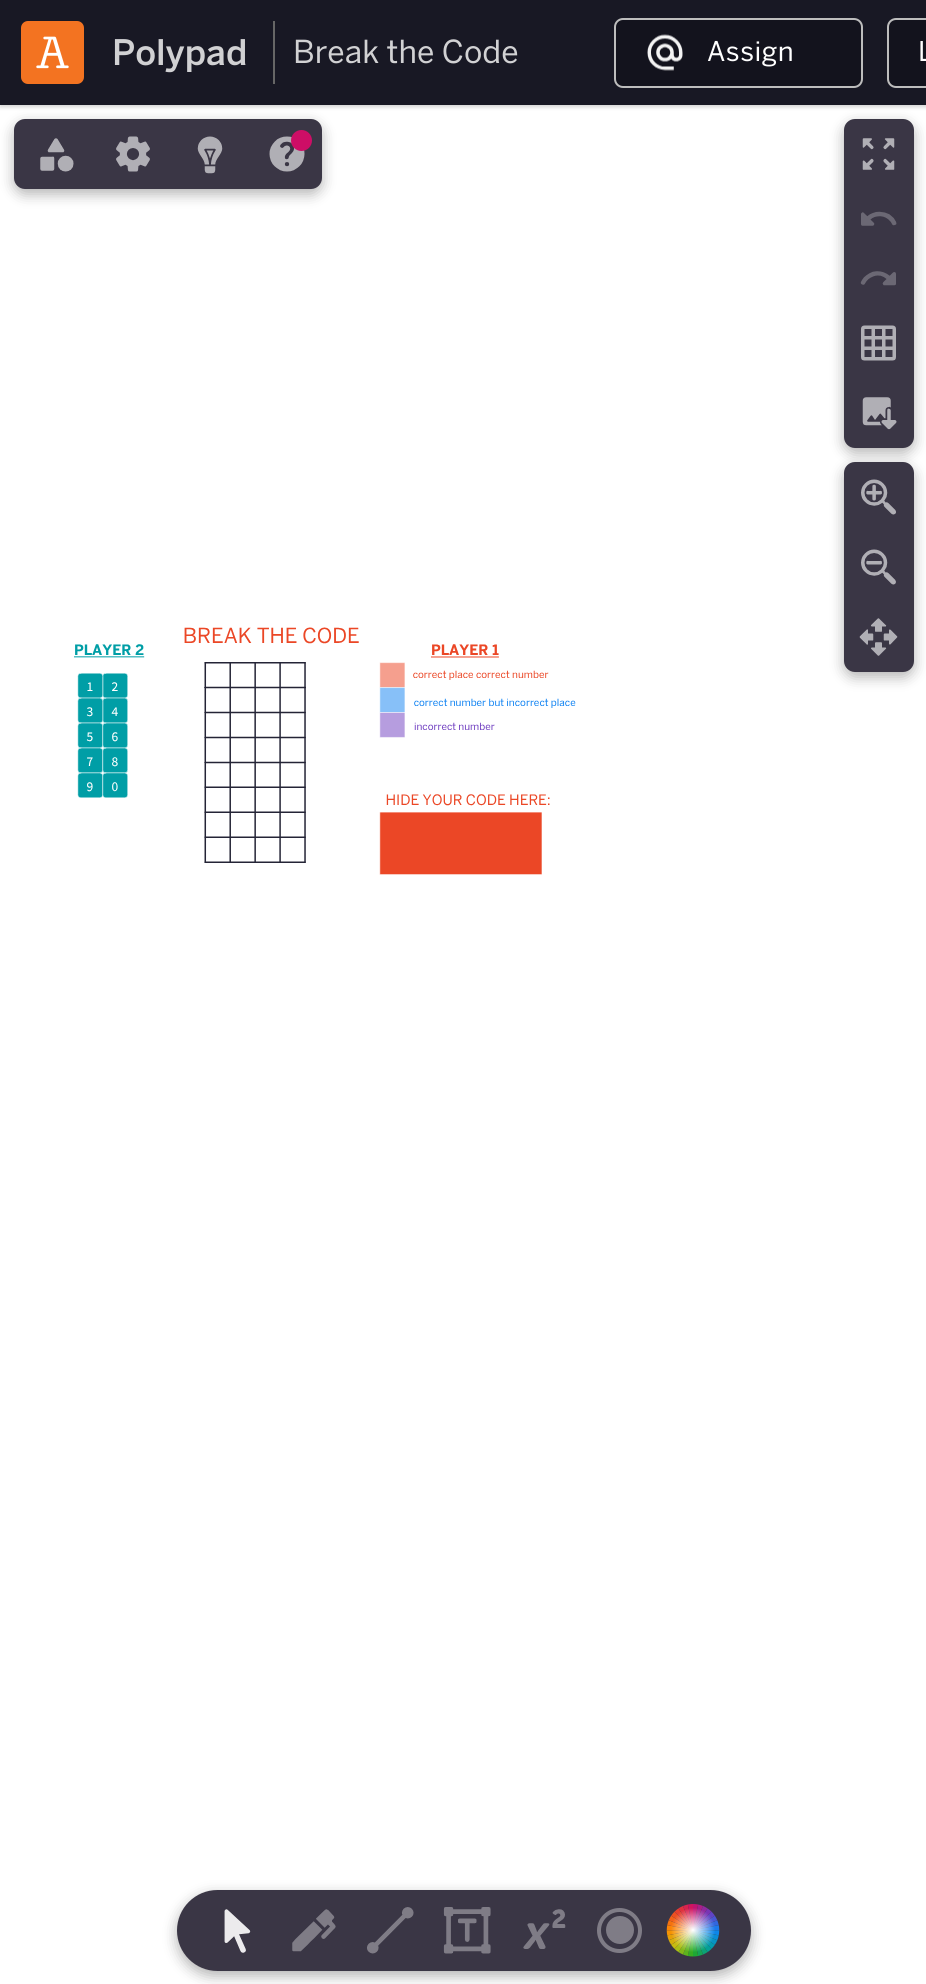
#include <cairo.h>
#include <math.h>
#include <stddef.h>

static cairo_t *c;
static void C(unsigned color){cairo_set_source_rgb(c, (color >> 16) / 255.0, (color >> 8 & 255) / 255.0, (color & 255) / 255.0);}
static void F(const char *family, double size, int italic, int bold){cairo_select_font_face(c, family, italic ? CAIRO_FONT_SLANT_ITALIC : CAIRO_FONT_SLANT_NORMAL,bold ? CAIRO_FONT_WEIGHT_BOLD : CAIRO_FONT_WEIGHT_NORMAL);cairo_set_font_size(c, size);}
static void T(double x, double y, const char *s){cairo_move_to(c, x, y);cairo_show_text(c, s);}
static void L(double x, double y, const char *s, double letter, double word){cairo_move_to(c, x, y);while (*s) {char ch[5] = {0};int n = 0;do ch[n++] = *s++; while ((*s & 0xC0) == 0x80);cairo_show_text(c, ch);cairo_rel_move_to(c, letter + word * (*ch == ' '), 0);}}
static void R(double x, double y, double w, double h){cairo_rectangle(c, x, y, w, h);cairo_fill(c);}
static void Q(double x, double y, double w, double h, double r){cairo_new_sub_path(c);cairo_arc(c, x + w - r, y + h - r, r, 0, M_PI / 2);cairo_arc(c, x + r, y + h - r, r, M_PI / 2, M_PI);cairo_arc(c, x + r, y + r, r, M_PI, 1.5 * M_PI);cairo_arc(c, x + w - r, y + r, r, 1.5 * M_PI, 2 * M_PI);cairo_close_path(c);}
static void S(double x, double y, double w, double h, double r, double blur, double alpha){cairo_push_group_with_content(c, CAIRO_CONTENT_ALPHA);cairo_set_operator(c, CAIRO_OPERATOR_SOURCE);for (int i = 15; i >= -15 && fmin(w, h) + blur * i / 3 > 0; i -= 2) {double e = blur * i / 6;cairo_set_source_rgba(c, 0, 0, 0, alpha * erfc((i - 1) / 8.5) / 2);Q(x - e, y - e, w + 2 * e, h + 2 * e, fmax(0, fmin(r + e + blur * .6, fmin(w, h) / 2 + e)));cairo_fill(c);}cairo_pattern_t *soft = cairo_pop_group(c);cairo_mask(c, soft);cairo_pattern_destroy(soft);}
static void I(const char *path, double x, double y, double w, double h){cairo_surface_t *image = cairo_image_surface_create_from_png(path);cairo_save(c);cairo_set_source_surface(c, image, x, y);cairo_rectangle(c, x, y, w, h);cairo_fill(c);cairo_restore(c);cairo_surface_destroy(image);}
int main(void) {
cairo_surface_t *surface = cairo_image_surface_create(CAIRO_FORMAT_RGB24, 926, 1984);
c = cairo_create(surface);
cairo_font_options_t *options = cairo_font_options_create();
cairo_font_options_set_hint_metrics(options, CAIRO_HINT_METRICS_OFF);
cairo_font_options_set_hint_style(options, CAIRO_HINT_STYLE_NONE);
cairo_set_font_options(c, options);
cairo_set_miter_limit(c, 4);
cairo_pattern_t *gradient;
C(0xffffff);
cairo_paint(c);
C(0x000000);
S(0,2,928,105,0,2.5,.07);
S(0,2,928,105,0,2,.12);
S(14,124,308,70,11,7,.3);
S(844,124,70,329,11,7,.3);
C(0x181824);
R(0,0,926,105);
I("1.png",21,21,63,63);
F("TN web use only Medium",35,0,0);
C(0xd1d1d3);
T(112,65,"Polypad");
C(0x666666);
R(273,21,2,63);
F("TN web use only",31.5,0,0);
C(0xd1d1d3);
T(293,63,"Break the Code");
C(0x13131d);
Q(615,19,247,68,8);
cairo_fill_preserve(c);
C(0xbdbdbd);
cairo_stroke(c);
I("2.png",647,34,36,37);
F("TN web use only",27,0,0);
C(0xffffff);
L(707,61,"Assign",.5,0);
C(0x13131d);
Q(888,19,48,68,8);
cairo_fill_preserve(c);
C(0xbdbdbd);
cairo_stroke(c);
C(0xffffff);
L(918,61,"L",.5,0);
C(0x3a3645);
cairo_new_path(c);
cairo_move_to(c,25,119);
cairo_line_to(c,91,119);
cairo_line_to(c,91,189);
cairo_line_to(c,25,189);
cairo_curve_to(c,19,189,14,184,14,178);
cairo_line_to(c,14,130);
cairo_curve_to(c,14,124,19,119,25,119);
cairo_close_path(c);
cairo_fill(c);
I("3.png",40,138,34,34);
R(91,119,154,70);
I("4.png",116,136,34,36);
cairo_new_path(c);
cairo_move_to(c,245,119);
cairo_line_to(c,311,119);
cairo_curve_to(c,317,119,322,124,322,130);
cairo_line_to(c,322,178);
cairo_curve_to(c,322,184,317,189,311,189);
cairo_line_to(c,245,189);
cairo_close_path(c);
cairo_fill(c);
I("5.png",269,136,36,36);
C(0xcd0e66);
cairo_arc(c,301.5,140.5,10.5,0,2 * M_PI);
cairo_fill(c);
I("6.png",197,136,26,38);
C(0x3a3645);
Q(844,119,70,329,11);
cairo_fill(c);
I("7.png",862,138,33,32);
I("8.png",861,211,36,15);
I("9.png",860,271,36,15);
I("10.png",861,325,35,36);
I("11.png",862,397,35,33);
C(0x000000);
S(844,467,70,210,11,7,.3);
C(0x3a3645);
Q(844,462,70,210,11);
cairo_fill(c);
I("12.png",861,479,35,36);
I("13.png",861,549,35,36);
I("14.png",859,618,39,38);
I("15.png",74,627,502,248);
C(0x000000);
S(177,1895,574,81,40.5,7,.3);
C(0x3a3645);
Q(177,1890,574,81,40.5);
cairo_fill(c);
I("16.png",224,1909,27,44);
I("17.png",292,1909,44,43);
I("18.png",367,1907,47,47);
I("19.png",443,1907,48,47);
I("20.png",523,1909,43,40);
C(0x7f7c86);
cairo_arc(c,620,1930,14,0,2 * M_PI);
cairo_fill(c);
cairo_arc(c,619.5,1930.5,20.5,0,2 * M_PI);
cairo_set_line_width(c,4);
cairo_stroke(c);
I("21.png",666,1904,54,53);
gradient = cairo_pattern_create_radial(693,1930,0,693,1930,37);
cairo_pattern_add_color_stop_rgba(gradient,0,1,1,1,1);
cairo_pattern_add_color_stop_rgba(gradient,.6,1,1,1,0);
cairo_set_source(c,gradient);
cairo_pattern_destroy(gradient);
R(671,1908,44,44);
cairo_surface_write_to_png(surface, "o.png");
cairo_font_options_destroy(options);
cairo_destroy(c);
cairo_surface_destroy(surface);
return 0;
}
